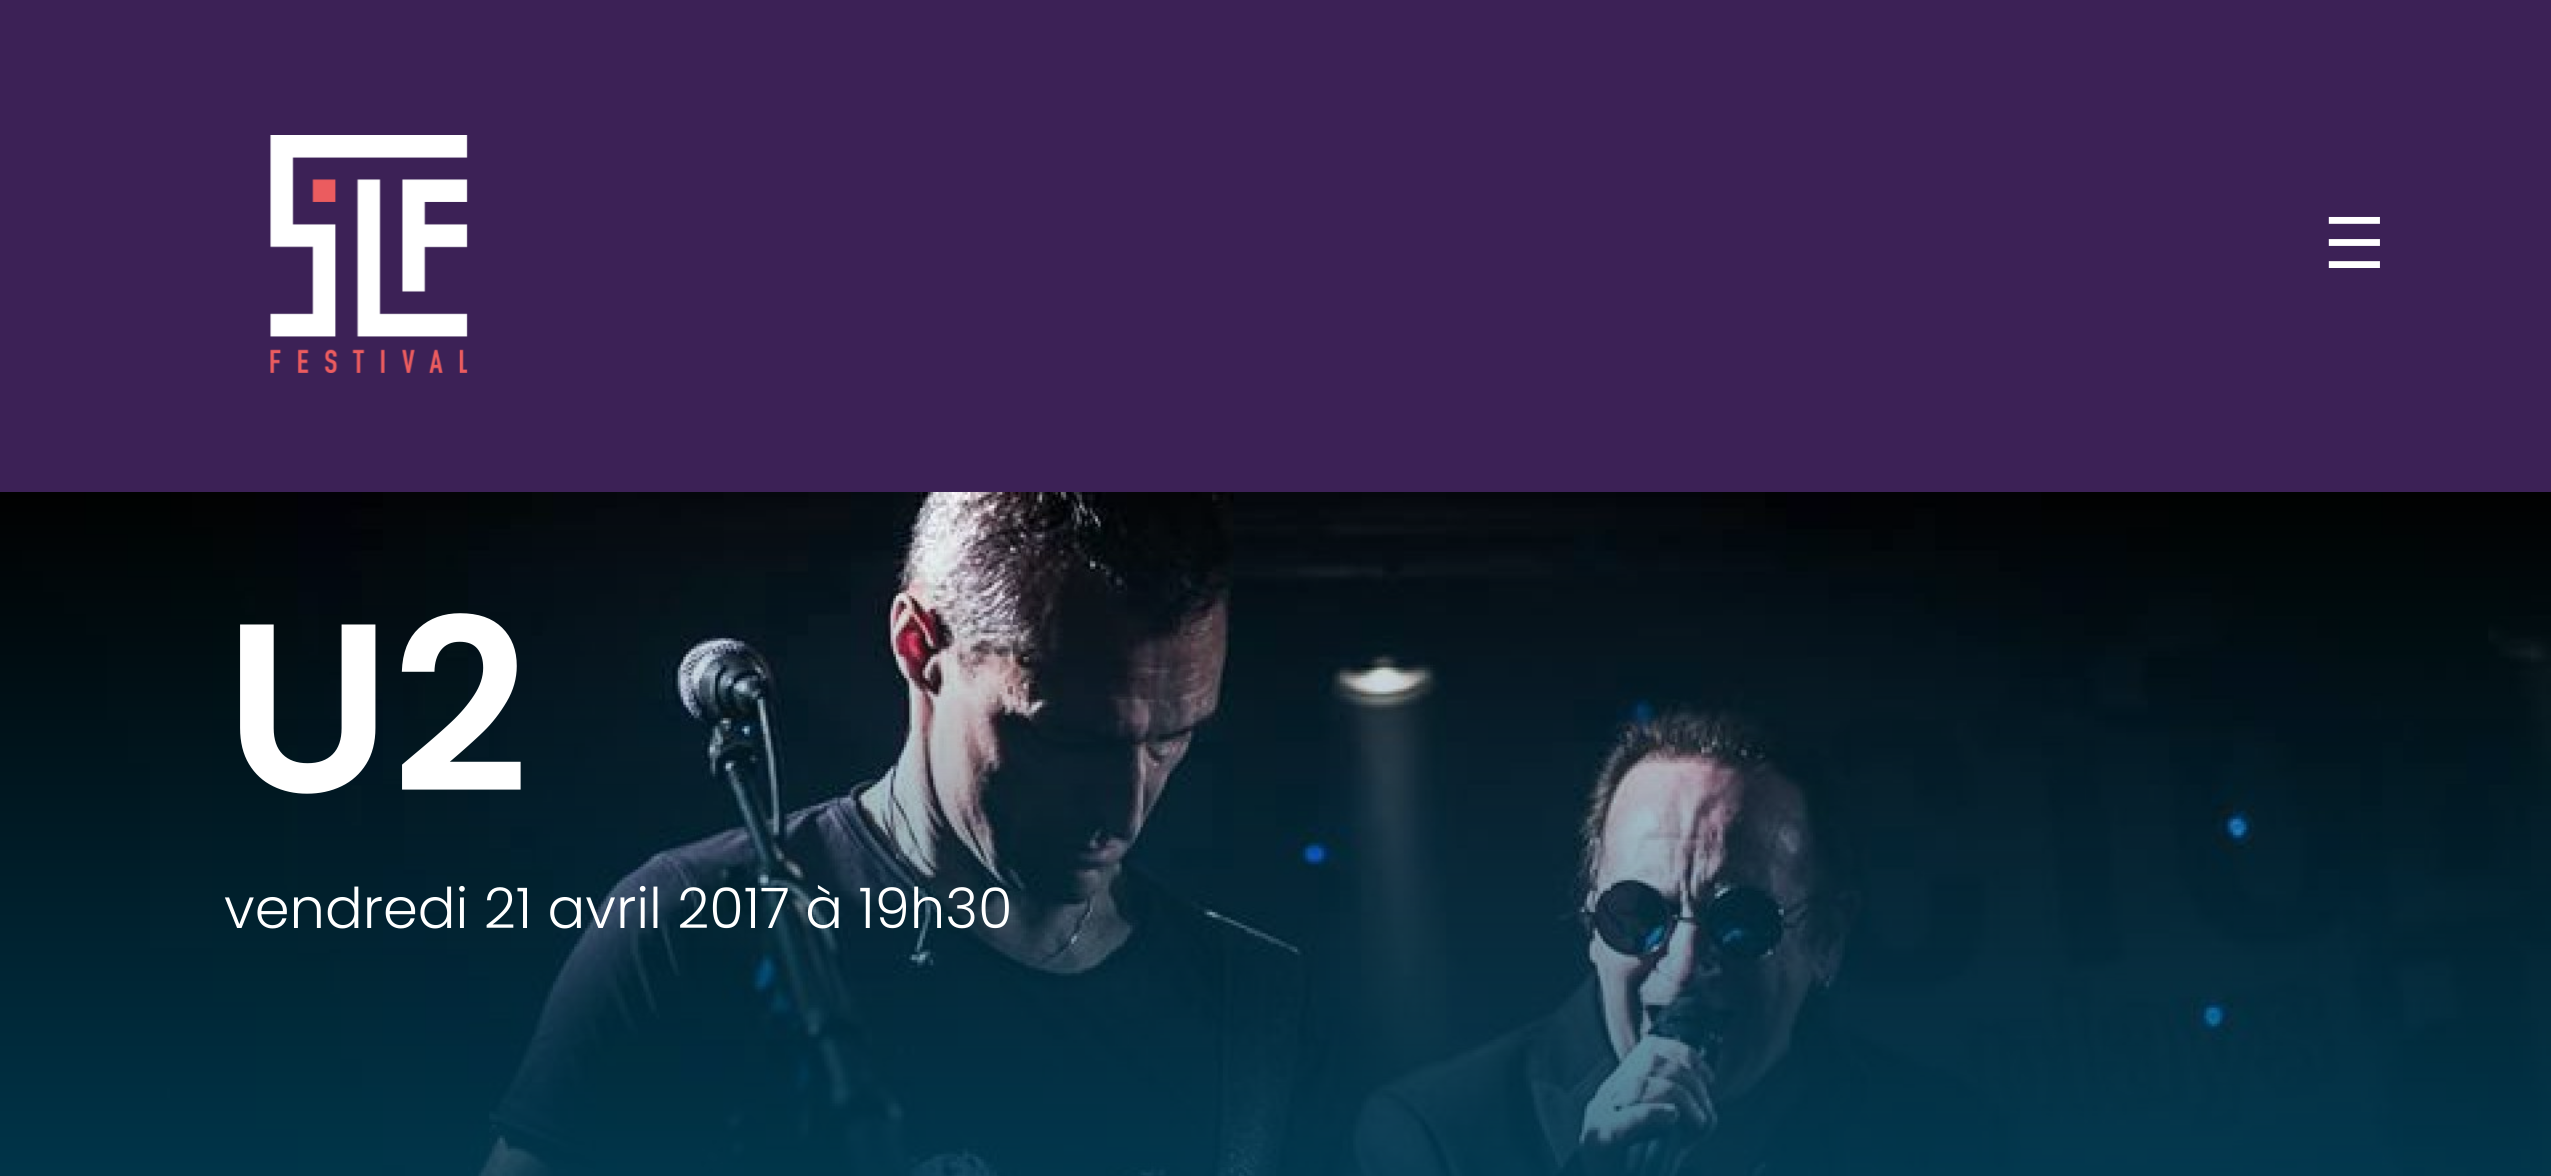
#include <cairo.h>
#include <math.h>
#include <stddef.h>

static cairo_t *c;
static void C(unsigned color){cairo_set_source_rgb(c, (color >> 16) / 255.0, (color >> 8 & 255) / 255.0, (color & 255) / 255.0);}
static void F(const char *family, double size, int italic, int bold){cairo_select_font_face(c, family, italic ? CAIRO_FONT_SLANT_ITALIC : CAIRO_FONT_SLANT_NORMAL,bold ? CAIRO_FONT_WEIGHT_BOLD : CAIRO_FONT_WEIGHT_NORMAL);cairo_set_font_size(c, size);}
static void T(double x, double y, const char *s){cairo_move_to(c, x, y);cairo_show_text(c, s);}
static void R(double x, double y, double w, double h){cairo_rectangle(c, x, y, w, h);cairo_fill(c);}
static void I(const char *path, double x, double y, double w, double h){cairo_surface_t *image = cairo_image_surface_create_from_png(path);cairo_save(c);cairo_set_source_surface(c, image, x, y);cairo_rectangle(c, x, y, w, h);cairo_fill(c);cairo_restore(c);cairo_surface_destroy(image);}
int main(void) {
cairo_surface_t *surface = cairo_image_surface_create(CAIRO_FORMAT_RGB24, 2551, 1176);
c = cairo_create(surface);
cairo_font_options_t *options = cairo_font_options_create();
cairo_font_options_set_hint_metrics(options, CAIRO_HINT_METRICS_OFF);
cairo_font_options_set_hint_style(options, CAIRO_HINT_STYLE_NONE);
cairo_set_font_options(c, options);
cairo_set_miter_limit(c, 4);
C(0xffffff);
cairo_paint(c);
C(0x3c2156);
R(0,0,2551,492);
I("1.png",270,135,198,238);
F("DejaVu Sans",70,0,0);
C(0xffffff);
T(2323,268,"☰");
I("2.png",0,492,2551,684);
F("Poppins SemiBold",240,0,0);
T(224,792,"U2");
F("Poppins Light",56,0,0);
T(224,928,"vendredi 21 avril 2017 à 19h30");
cairo_surface_write_to_png(surface, "o.png");
cairo_font_options_destroy(options);
cairo_destroy(c);
cairo_surface_destroy(surface);
return 0;
}
